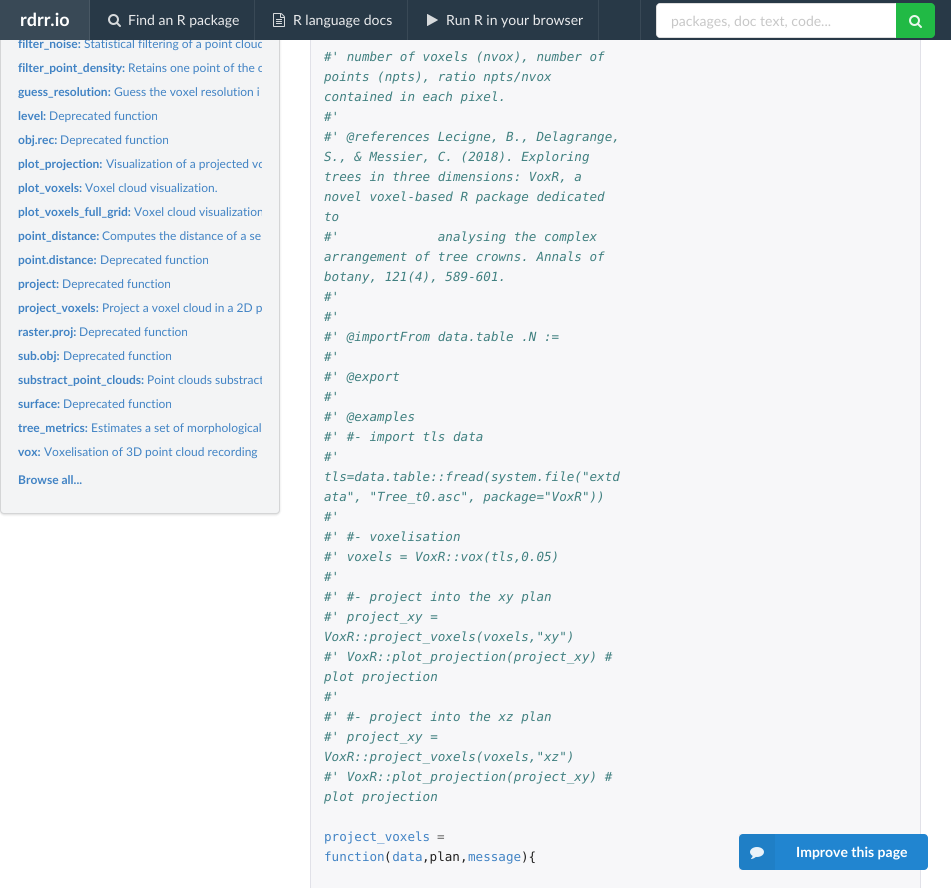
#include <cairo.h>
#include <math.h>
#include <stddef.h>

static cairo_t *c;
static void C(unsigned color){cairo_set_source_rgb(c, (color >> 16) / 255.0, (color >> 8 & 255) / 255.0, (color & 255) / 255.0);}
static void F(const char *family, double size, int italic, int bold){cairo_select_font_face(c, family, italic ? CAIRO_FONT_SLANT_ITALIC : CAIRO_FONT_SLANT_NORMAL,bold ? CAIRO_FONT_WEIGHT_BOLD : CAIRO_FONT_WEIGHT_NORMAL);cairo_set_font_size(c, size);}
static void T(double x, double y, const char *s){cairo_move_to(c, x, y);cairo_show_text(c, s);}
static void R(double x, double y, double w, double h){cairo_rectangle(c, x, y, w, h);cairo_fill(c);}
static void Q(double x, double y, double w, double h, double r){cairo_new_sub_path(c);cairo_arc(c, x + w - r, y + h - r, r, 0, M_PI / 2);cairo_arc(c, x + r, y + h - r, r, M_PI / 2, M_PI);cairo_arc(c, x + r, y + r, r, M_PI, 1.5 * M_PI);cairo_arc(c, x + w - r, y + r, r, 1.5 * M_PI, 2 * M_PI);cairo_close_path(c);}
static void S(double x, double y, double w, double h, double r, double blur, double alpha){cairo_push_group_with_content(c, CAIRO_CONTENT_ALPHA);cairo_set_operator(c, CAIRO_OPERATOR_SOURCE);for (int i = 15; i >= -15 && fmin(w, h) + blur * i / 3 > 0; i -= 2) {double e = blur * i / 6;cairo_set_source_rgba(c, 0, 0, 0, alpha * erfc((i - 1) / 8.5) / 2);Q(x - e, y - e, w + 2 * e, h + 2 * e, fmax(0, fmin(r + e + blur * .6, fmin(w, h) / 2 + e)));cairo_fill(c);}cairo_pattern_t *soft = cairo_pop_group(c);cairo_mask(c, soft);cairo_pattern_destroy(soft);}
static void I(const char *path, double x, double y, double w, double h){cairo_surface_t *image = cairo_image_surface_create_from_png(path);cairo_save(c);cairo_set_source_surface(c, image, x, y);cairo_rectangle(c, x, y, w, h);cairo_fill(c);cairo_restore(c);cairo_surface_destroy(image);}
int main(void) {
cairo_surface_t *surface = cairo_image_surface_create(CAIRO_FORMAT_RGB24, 951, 888);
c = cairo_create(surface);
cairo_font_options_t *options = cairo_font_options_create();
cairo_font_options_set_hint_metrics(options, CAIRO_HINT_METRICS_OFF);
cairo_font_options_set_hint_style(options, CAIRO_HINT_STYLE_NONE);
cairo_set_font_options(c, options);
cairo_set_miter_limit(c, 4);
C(0xffffff);
cairo_paint(c);
C(0x222426);
S(0,-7,280,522,4,1,.15);
C(0xf3f4f5);
Q(.5,-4.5,279,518,3.5);
cairo_fill_preserve(c);
C(0xd4d5d6);
cairo_set_line_width(c,1);
cairo_stroke(c);
cairo_save(c);
cairo_rectangle(c,18,32,244,24);
cairo_clip(c);
F("Lato",12,0,0);
C(0x4183c4);
T(84,48,"Statistical filtering of a point cloud");
cairo_restore(c);
C(0xf7f7f9);
R(311,40,609,848);
cairo_rectangle(c,310.5,-.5,610,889);
C(0xe1e1e8);
cairo_stroke(c);
C(0x283947);
R(90,0,861,40);
F("Lato",12,0,1);
C(0x4183c4);
T(18,48,"filter_noise:");
C(0x394956);
R(0,0,89,40);
F("Lato",18,0,1);
C(0xffffff);
T(20,26,"rdrr.io");
C(0x495864);
R(89,0,1,40);
I("1.png",108,14,13,13);
F("Lato",14,0,0);
C(0xeaebed);
T(128,25,"Find an R package");
C(0x394956);
R(254,0,1,40);
I("2.png",273,13,12,14);
C(0xeaebed);
T(293,25,"R language docs");
C(0x394956);
R(407,0,1,40);
I("3.png",427,14,11,12);
C(0xeaebed);
T(446,25,"Run R in your browser");
C(0x394956);
R(598,0,1,40);
R(640,0,1,40);
C(0xffffff);
cairo_new_path(c);
cairo_move_to(c,660,3);
cairo_line_to(c,896,3);
cairo_line_to(c,896,38);
cairo_line_to(c,660,38);
cairo_curve_to(c,658,38,656,36,656,34);
cairo_line_to(c,656,7);
cairo_curve_to(c,656,5,658,3,660,3);
cairo_close_path(c);
cairo_fill(c);
cairo_set_source_rgba(c,0.133,0.141,0.149,0.15);
cairo_new_path(c);
cairo_move_to(c,660,3);
cairo_line_to(c,657,4);
cairo_line_to(c,658,5);
cairo_line_to(c,658,4);
cairo_line_to(c,895,4);
cairo_line_to(c,896,3);
cairo_close_path(c);
cairo_fill(c);
cairo_new_path(c);
cairo_move_to(c,896,38);
cairo_line_to(c,895,37);
cairo_line_to(c,658,37);
cairo_line_to(c,658,36);
cairo_line_to(c,657,37);
cairo_line_to(c,660,38);
cairo_close_path(c);
cairo_fill(c);
cairo_new_path(c);
cairo_move_to(c,656,7);
cairo_line_to(c,656,34);
cairo_curve_to(c,656,35,656.5,36,657,37);
cairo_line_to(c,658,36);
cairo_curve_to(c,657,36,657,35,657,34);
cairo_line_to(c,657,7);
cairo_curve_to(c,657,6,657,5,658,5);
cairo_line_to(c,657,4);
cairo_curve_to(c,656.5,5,656,6,656,7);
cairo_close_path(c);
cairo_fill(c);
C(0xc7c7c7);
T(671,26,"packages, doc text, code...");
C(0x21ba45);
cairo_new_path(c);
cairo_move_to(c,896,3);
cairo_line_to(c,931,3);
cairo_curve_to(c,933,3,935,5,935,7);
cairo_line_to(c,935,34);
cairo_curve_to(c,935,36,933,38,931,38);
cairo_line_to(c,896,38);
cairo_close_path(c);
cairo_fill(c);
I("4.png",909,15,13,13);
F("Lato",12,0,1);
C(0x4183c4);
T(18,72,"filter_point_density:");
cairo_save(c);
cairo_rectangle(c,18,56,244,24);
cairo_clip(c);
F("Lato",12,0,0);
T(128,72,"Retains one point of the o");
cairo_restore(c);
T(18,96,"guess_resolution:");
F("Lato",12,0,0);
T(114,96,"Guess the voxel resolution i");
F("Lato",12,0,1);
T(18,120,"level:");
F("Lato",12,0,0);
T(49,120,"Deprecated function");
F("Lato",12,0,1);
T(18,144,"obj.rec:");
F("Lato",12,0,0);
T(60,144,"Deprecated function");
F("Lato",12,0,1);
T(18,168,"plot_projection:");
cairo_save(c);
cairo_rectangle(c,18,152,244,24);
cairo_clip(c);
F("Lato",12,0,0);
T(106,168,"Visualization of a projected vo");
cairo_restore(c);
T(18,192,"plot_voxels:");
F("Lato",12,0,0);
T(85,192,"Voxel cloud visualization.");
F("Lato",12,0,1);
T(18,216,"plot_voxels_full_grid:");
cairo_save(c);
cairo_rectangle(c,18,200,244,24);
cairo_clip(c);
F("Lato",12,0,0);
T(134,216,"Voxel cloud visualization");
cairo_restore(c);
T(18,240,"point_distance:");
F("Lato",12,0,0);
T(102,240,"Computes the distance of a se");
F("Lato",12,0,1);
T(18,264,"point.distance:");
F("Lato",12,0,0);
T(100,264,"Deprecated function");
F("Lato",12,0,1);
T(18,288,"project:");
F("Lato",12,0,0);
T(62,288,"Deprecated function");
F("Lato",12,0,1);
T(18,312,"project_voxels:");
F("Lato",12,0,0);
T(102,312,"Project a voxel cloud in a 2D p");
F("Lato",12,0,1);
T(18,336,"raster.proj:");
F("Lato",12,0,0);
T(79,336,"Deprecated function");
F("Lato",12,0,1);
T(18,360,"sub.obj:");
F("Lato",12,0,0);
T(63,360,"Deprecated function");
F("Lato",12,0,1);
T(18,384,"substract_point_clouds:");
cairo_save(c);
cairo_rectangle(c,18,368,244,24);
cairo_clip(c);
F("Lato",12,0,0);
T(147,384,"Point clouds substract");
cairo_restore(c);
T(18,408,"surface:");
F("Lato",12,0,0);
T(63,408,"Deprecated function");
F("Lato",12,0,1);
T(18,432,"tree_metrics:");
F("Lato",12,0,0);
T(91,432,"Estimates a set of morphological");
F("Lato",12,0,1);
T(18,456,"vox:");
F("Lato",12,0,0);
T(44,456,"Voxelisation of 3D point cloud recording");
F("Lato",12,0,1);
T(18,484,"Browse all...");
F("DejaVu Sans Mono",12.6,1,0);
C(0x408080);
T(324,61,"#' number of voxels (nvox), number of");
T(324,81,"points (npts), ratio npts/nvox");
T(324,101,"contained in each pixel.");
T(324,121,"#'");
T(324,141,"#' @references Lecigne, B., Delagrange,");
T(324,161,"S., & Messier, C. (2018). Exploring");
T(324,181,"trees in three dimensions: VoxR, a");
T(324,201,"novel voxel-based R package dedicated");
T(324,221,"to");
T(324,241,"#'             analysing the complex");
T(324,261,"arrangement of tree crowns. Annals of");
T(324,281,"botany, 121(4), 589-601.");
T(324,301,"#'");
T(324,321,"#'");
T(324,341,"#' @importFrom data.table .N :=");
T(324,361,"#'");
T(324,381,"#' @export");
T(324,401,"#'");
T(324,421,"#' @examples");
T(324,441,"#' #- import tls data");
T(324,461,"#'");
T(324,481,"tls=data.table::fread(system.file(\"extd");
T(324,501,"ata\", \"Tree_t0.asc\", package=\"VoxR\"))");
T(324,521,"#'");
T(324,541,"#' #- voxelisation");
T(324,561,"#' voxels = VoxR::vox(tls,0.05)");
T(324,581,"#'");
T(324,601,"#' #- project into the xy plan");
T(324,621,"#' project_xy =");
T(324,641,"VoxR::project_voxels(voxels,\"xy\")");
T(324,661,"#' VoxR::plot_projection(project_xy) #");
T(324,681,"plot projection");
T(324,701,"#'");
T(324,721,"#' #- project into the xz plan");
T(324,741,"#' project_xy =");
T(324,761,"VoxR::project_voxels(voxels,\"xz\")");
T(324,781,"#' VoxR::plot_projection(project_xy) #");
T(324,801,"plot projection");
F("DejaVu Sans Mono",12.6,0,0);
C(0x4183c4);
T(324,841,"project_voxels");
C(0x666666);
T(437,841,"=");
C(0x4183c4);
T(324,861,"function data");
C(0x202020);
T(384,861,"(");
T(422,861,",plan,");
C(0x4183c4);
T(468,861,"message");
C(0x202020);
T(521,861,"){");
C(0x2185d0);
Q(739,834,189,36,4);
cairo_fill(c);
cairo_set_source_rgba(c,0,0,0,0.05);
R(739,834,36,36);
I("5.png",750,847,14,12);
F("Lato",14,0,1);
C(0xffffff);
T(796,857,"Improve this page");
cairo_surface_write_to_png(surface, "o.png");
cairo_font_options_destroy(options);
cairo_destroy(c);
cairo_surface_destroy(surface);
return 0;
}
